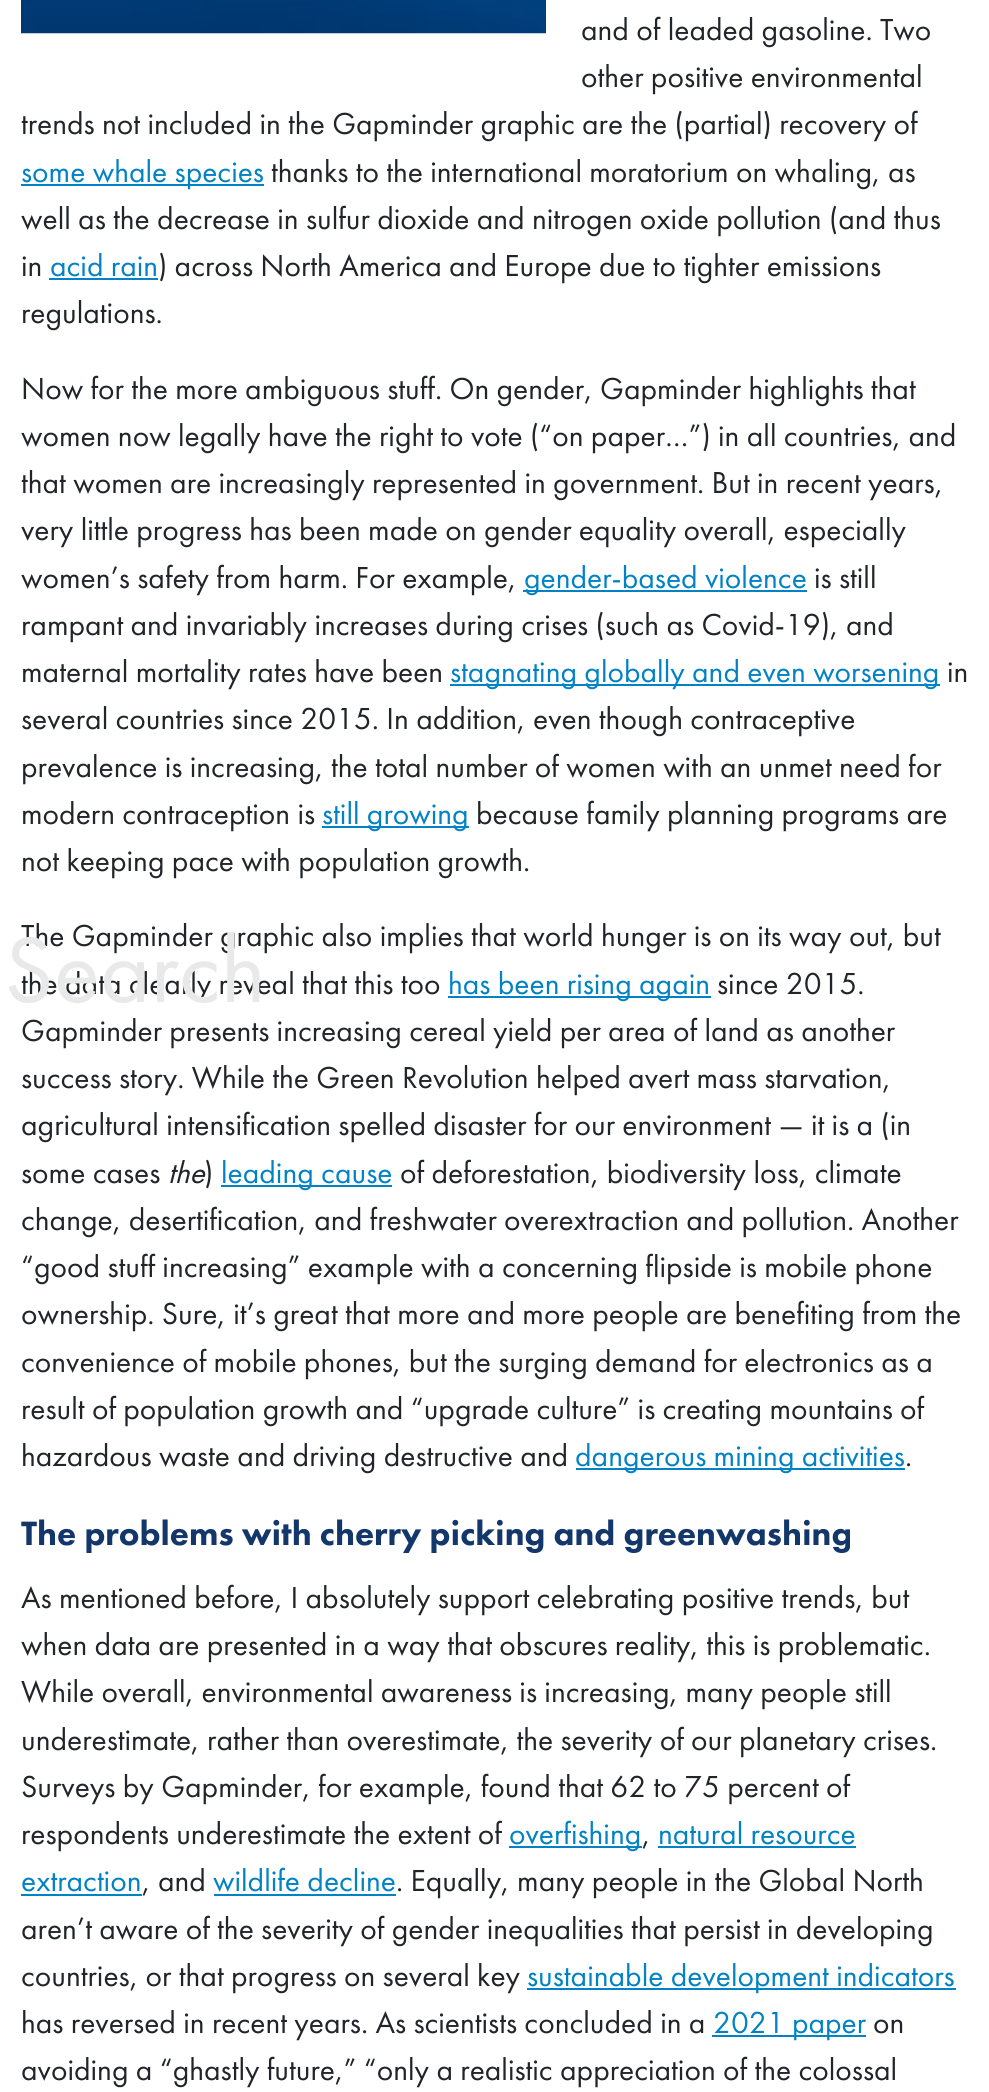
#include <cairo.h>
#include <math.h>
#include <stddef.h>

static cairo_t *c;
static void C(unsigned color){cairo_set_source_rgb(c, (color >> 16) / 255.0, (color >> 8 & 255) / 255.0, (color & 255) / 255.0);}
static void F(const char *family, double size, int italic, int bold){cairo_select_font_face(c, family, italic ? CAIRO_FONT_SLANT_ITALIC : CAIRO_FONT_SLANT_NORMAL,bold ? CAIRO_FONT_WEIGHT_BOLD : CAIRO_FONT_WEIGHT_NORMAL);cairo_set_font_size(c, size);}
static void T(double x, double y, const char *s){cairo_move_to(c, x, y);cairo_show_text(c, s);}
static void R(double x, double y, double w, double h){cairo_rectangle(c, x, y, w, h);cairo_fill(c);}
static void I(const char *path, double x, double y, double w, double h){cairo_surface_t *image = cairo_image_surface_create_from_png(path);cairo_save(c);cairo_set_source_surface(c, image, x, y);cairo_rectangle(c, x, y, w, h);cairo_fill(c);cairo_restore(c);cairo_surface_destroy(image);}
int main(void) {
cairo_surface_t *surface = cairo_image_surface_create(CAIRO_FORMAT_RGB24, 989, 2092);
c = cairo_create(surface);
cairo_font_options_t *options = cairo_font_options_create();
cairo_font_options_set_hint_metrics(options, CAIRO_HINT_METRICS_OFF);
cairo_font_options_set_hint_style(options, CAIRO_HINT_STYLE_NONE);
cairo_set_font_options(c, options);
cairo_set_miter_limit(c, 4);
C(0xffffff);
cairo_paint(c);
I("1.png",21,0,525,34);
F("Futura PT",31.5,0,0);
C(0x212529);
T(581,40,"and of leaded gasoline. Two");
T(581,87,"other positive environmental");
T(21,134,"trends not included in the Gapminder graphic are the (partial) recovery of");
C(0x0082c4);
R(21,184,243,2);
T(21,182,"some whale species");
C(0x212529);
T(271,182,"thanks to the international moratorium on whaling, as");
T(21,229,"well as the decrease in sulfur dioxide and nitrogen oxide pollution (and thus");
T(21,276,"in");
C(0x0082c4);
T(50,276,"acid rain");
R(49,278,109,2);
C(0x212529);
T(158,276,") across North America and Europe due to tighter emissions");
T(21,323,"regulations.");
T(21,399,"Now for the more ambiguous stuff. On gender, Gapminder highlights that");
T(21,446,"women now legally have the right to vote (“on paper…”) in all countries, and");
T(21,493,"that women are increasingly represented in government. But in recent years,");
T(21,540,"very little progress has been made on gender equality overall, especially");
T(21,588,"women’s safety from harm. For example,");
C(0x0082c4);
R(523,590,284,2);
T(524,588,"gender-based violence");
C(0x212529);
T(814,588,"is still");
T(21,635,"rampant and invariably increases during crises (such as Covid-19), and");
T(21,682,"maternal mortality rates have been");
C(0x0082c4);
R(450,684,490,2);
T(450,682,"stagnating globally and even worsening");
C(0x212529);
T(947,682,"in");
T(21,729,"several countries since 2015. In addition, even though contraceptive");
T(21,777,"prevalence is increasing, the total number of women with an unmet need for");
T(21,824,"modern contraception is");
C(0x0082c4);
R(322,826,147,2);
T(322,824,"still growing");
C(0x212529);
T(476,824,"because family planning programs are");
T(21,871,"not keeping pace with population growth.");
T(21,946,"The Gapminder graphic also implies that world hunger is on its way out, but");
T(21,994,"the data clearly reveal that this too");
C(0x0082c4);
R(448,996,263,2);
T(448,994,"has been rising again");
C(0x212529);
T(717,994,"since 2015.");
T(21,1041,"Gapminder presents increasing cereal yield per area of land as another");
T(21,1088,"success story. While the Green Revolution helped avert mass starvation,");
T(21,1135,"agricultural intensification spelled disaster for our environment — it is a (in");
T(21,1183,"some cases");
F("Futura PT",31.5,1,0);
T(168,1183,"the");
F("Futura PT",31.5,0,0);
T(204,1183,")");
C(0x0082c4);
R(221,1185,171,2);
T(221,1183,"leading cause");
C(0x212529);
T(400,1183,"of deforestation, biodiversity loss, climate");
T(21,1230,"change, desertification, and freshwater overextraction and pollution. Another");
T(21,1277,"“good stuff increasing” example with a concerning flipside is mobile phone");
T(21,1324,"ownership. Sure, it’s great that more and more people are benefiting from the");
T(21,1372,"convenience of mobile phones, but the surging demand for electronics as a");
T(21,1419,"result of population growth and “upgrade culture” is creating mountains of");
T(21,1466,"hazardous waste and driving destructive and");
C(0x0082c4);
R(576,1468,329,2);
T(575,1466,"dangerous mining activities");
C(0x212529);
T(905,1466,".");
F("Futura PT Black",35,0,0);
C(0x13376b);
T(21,1545,"The problems with cherry picking and greenwashing");
F("Futura PT",31.5,0,0);
C(0x212529);
T(21,1608,"As mentioned before, I absolutely support celebrating positive trends, but");
T(21,1655,"when data are presented in a way that obscures reality, this is problematic.");
T(21,1702,"While overall, environmental awareness is increasing, many people still");
T(21,1750,"underestimate, rather than overestimate, the severity of our planetary crises.");
T(21,1797,"Surveys by Gapminder, for example, found that 62 to 75 percent of");
T(21,1844,"respondents underestimate the extent of");
C(0x0082c4);
R(509,1846,133,2);
T(509,1844,"overfishing");
C(0x212529);
T(642,1844,",");
C(0x0082c4);
T(658,1844,"natural resource");
R(658,1846,198,2);
T(21,1891,"extraction");
R(21,1894,121,2);
C(0x212529);
T(142,1891,", and");
C(0x0082c4);
T(213,1891,"wildlife decline");
R(214,1894,182,2);
C(0x212529);
T(396,1891,". Equally, many people in the Global North");
T(21,1939,"aren’t aware of the severity of gender inequalities that persist in developing");
T(21,1986,"countries, or that progress on several key");
C(0x0082c4);
R(527,1988,429,2);
T(527,1986,"sustainable development indicators");
C(0x212529);
T(21,2033,"has reversed in recent years. As scientists concluded in a");
C(0x0082c4);
R(712,2035,154,2);
T(713,2033,"2021 paper");
C(0x212529);
T(873,2033,"on");
T(21,2080,"avoiding a “ghastly future,” “only a realistic appreciation of the colossal");
F("Futura PT",96,0,0);
C(0xe9e9ea);
T(4,1002,"Search");
cairo_surface_write_to_png(surface, "o.png");
cairo_font_options_destroy(options);
cairo_destroy(c);
cairo_surface_destroy(surface);
return 0;
}
